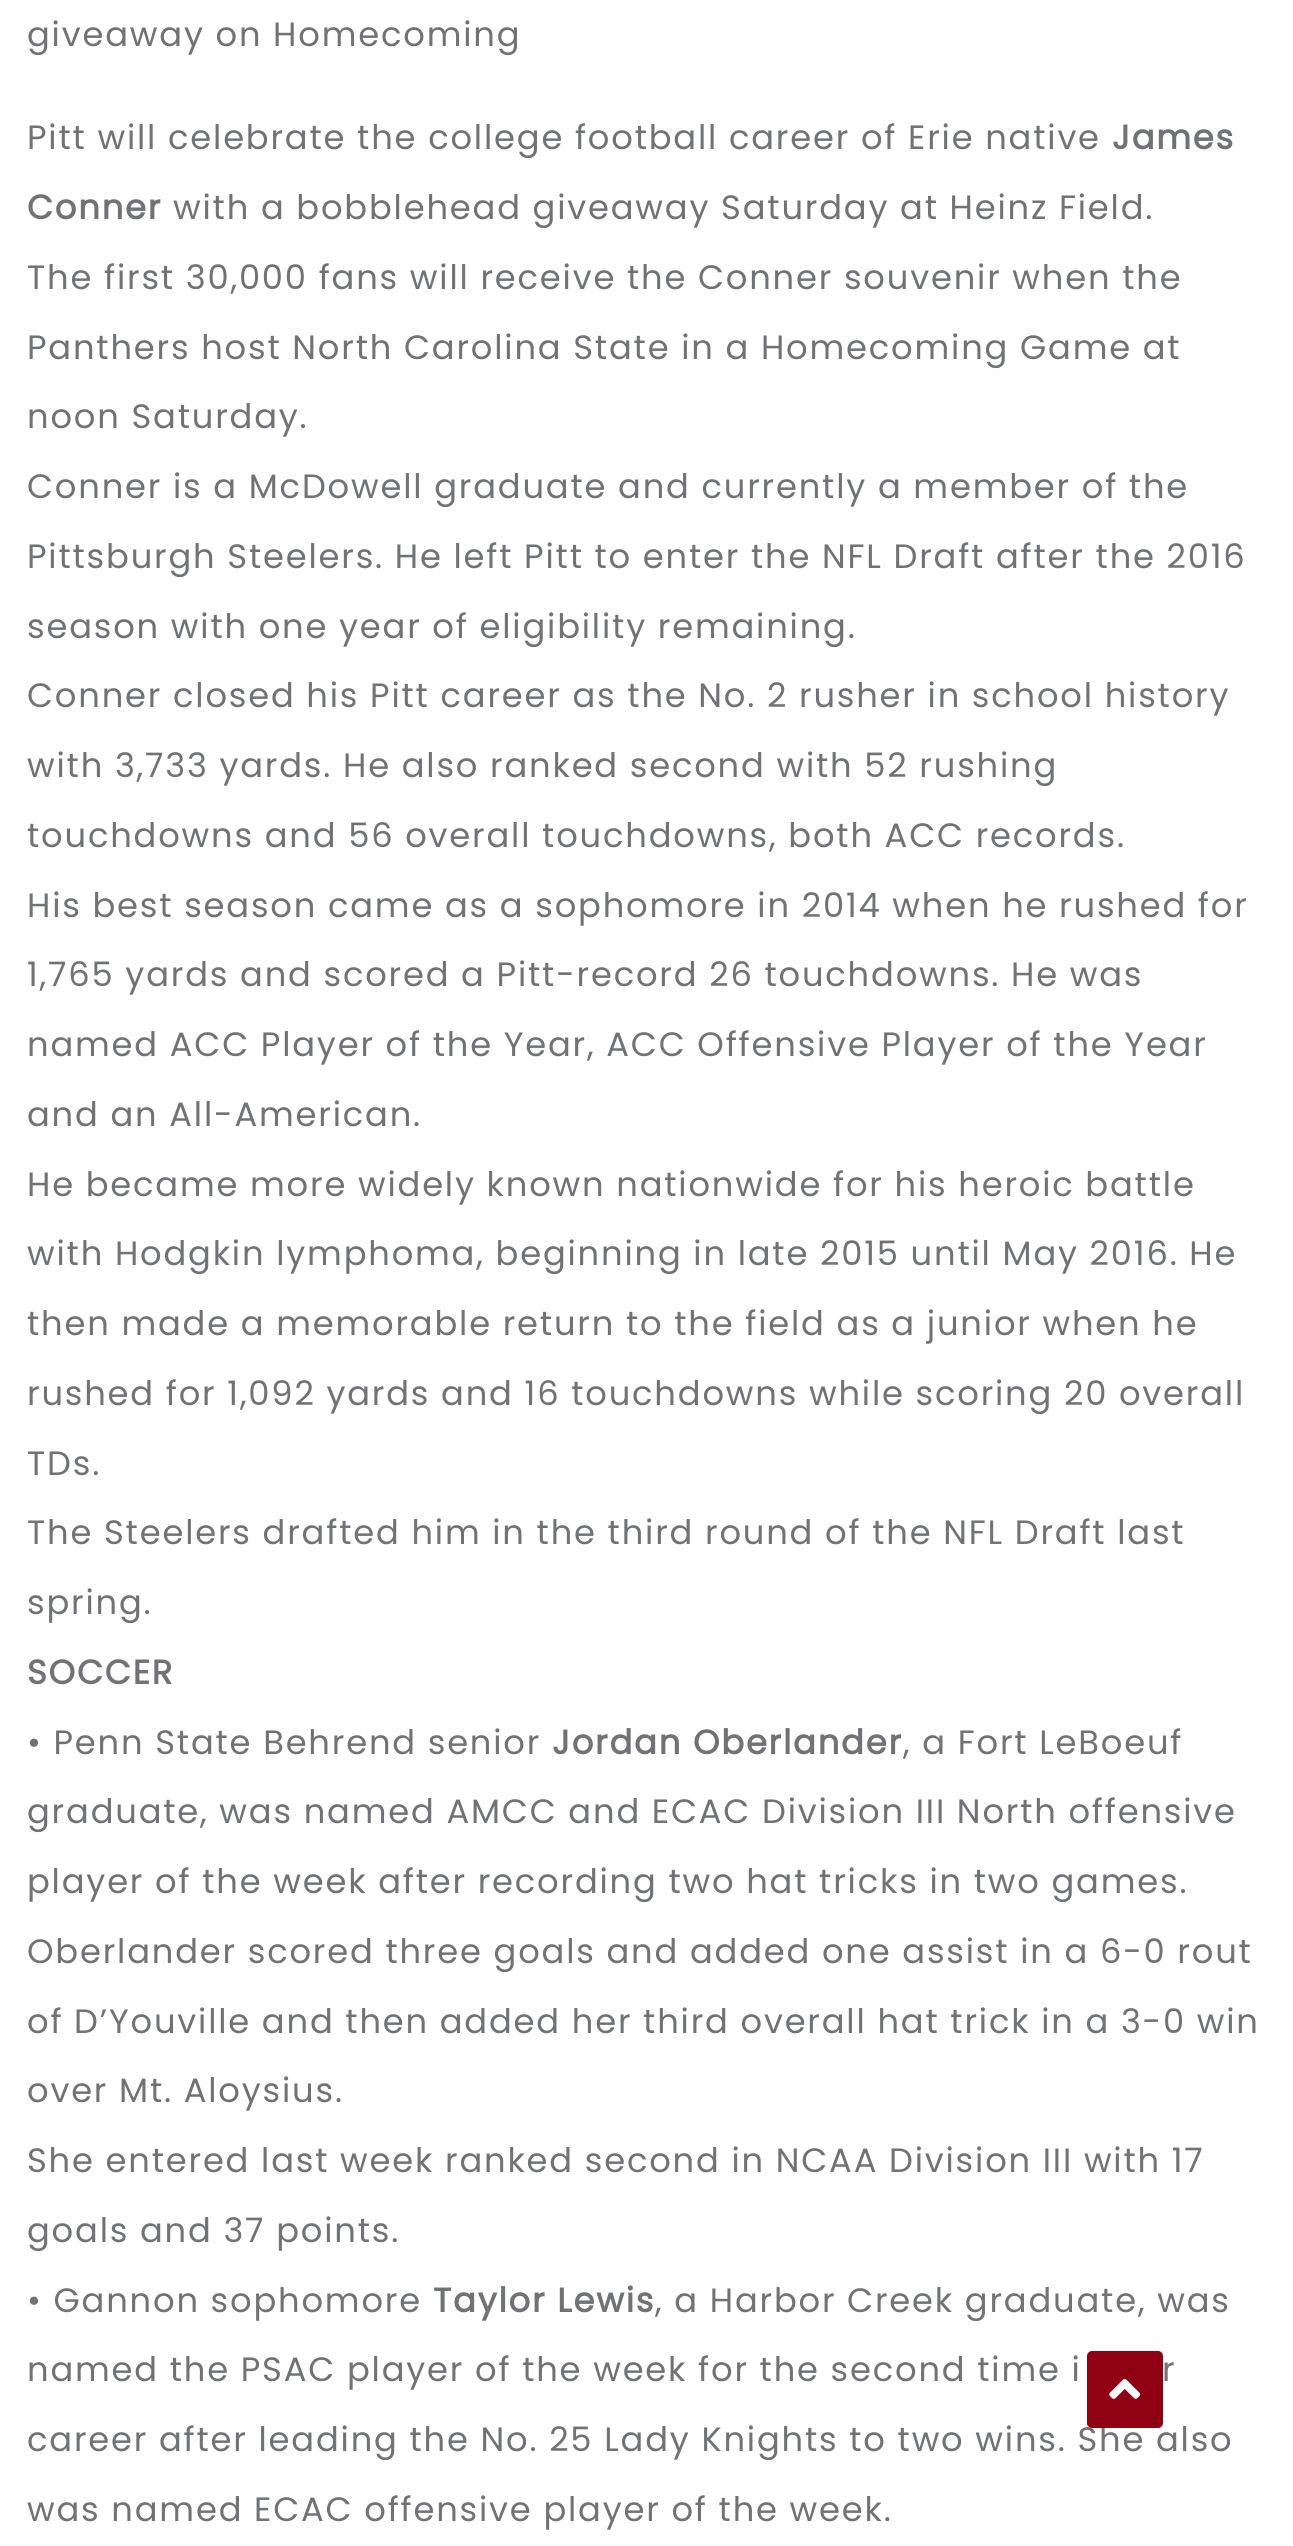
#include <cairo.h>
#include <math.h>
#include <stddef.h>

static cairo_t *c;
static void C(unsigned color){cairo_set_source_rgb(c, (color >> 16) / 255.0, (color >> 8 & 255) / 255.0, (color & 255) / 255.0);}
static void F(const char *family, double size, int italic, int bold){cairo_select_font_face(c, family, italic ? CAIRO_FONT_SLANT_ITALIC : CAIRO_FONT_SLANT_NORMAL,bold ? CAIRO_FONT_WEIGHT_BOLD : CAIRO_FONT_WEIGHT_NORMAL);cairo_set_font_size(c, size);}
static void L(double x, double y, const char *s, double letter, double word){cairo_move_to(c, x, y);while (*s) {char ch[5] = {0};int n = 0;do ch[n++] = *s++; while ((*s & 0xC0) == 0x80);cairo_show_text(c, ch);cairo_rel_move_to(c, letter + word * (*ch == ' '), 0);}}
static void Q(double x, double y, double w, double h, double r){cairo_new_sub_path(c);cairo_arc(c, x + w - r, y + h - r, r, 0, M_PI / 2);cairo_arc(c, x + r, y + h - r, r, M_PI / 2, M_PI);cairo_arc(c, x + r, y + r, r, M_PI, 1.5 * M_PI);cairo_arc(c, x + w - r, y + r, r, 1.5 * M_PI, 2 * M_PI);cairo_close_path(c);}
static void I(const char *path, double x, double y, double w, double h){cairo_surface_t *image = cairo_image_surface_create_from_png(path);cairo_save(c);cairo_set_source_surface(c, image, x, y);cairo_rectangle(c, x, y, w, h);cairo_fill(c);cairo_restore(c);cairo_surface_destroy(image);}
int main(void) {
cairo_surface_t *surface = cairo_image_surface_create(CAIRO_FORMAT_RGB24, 1293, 2546);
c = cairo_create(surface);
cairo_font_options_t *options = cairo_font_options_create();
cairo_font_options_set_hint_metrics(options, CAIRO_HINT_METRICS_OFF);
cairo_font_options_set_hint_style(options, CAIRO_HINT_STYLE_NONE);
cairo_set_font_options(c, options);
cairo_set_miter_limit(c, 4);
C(0xffffff);
cairo_paint(c);
F("Poppins",33.75,0,0);
C(0x707276);
L(27,46,"giveaway on Homecoming",1.8,0);
L(27,149,"Pitt will celebrate the college football career of Erie native",1.8,0);
F("Poppins",33.75,0,1);
L(1112,149,"James",1.8,0);
L(27,219,"Conner",1.8,0);
F("Poppins",33.75,0,0);
L(173,219,"with a bobblehead giveaway Saturday at Heinz Field.",1.8,0);
L(27,289,"The first 30,000 fans will receive the Conner souvenir when the",1.8,0);
L(27,359,"Panthers host North Carolina State in a Homecoming Game at",1.8,0);
L(27,428,"noon Saturday.",1.8,0);
L(27,498,"Conner is a McDowell graduate and currently a member of the",1.8,0);
L(27,568,"Pittsburgh Steelers. He left Pitt to enter the NFL Draft after the 2016",1.8,0);
L(27,638,"season with one year of eligibility remaining.",1.8,0);
L(27,707,"Conner closed his Pitt career as the No. 2 rusher in school history",1.8,0);
L(27,777,"with 3,733 yards. He also ranked second with 52 rushing",1.8,0);
L(27,847,"touchdowns and 56 overall touchdowns, both ACC records.",1.8,0);
L(27,917,"His best season came as a sophomore in 2014 when he rushed for",1.8,0);
L(27,986,"1,765 yards and scored a Pitt-record 26 touchdowns. He was",1.8,0);
L(27,1056,"named ACC Player of the Year, ACC Offensive Player of the Year",1.8,0);
L(27,1126,"and an All-American.",1.8,0);
L(27,1196,"He became more widely known nationwide for his heroic battle",1.8,0);
L(27,1265,"with Hodgkin lymphoma, beginning in late 2015 until May 2016. He",1.8,0);
L(27,1335,"then made a memorable return to the field as a junior when he",1.8,0);
L(27,1405,"rushed for 1,092 yards and 16 touchdowns while scoring 20 overall",1.8,0);
L(27,1475,"TDs.",1.8,0);
L(27,1544,"The Steelers drafted him in the third round of the NFL Draft last",1.8,0);
L(27,1614,"spring.",1.8,0);
F("Poppins",33.75,0,1);
L(27,1684,"SOCCER",1.8,0);
F("Poppins",33.75,0,0);
L(27,1754,"• Penn State Behrend senior",1.8,0);
F("Poppins",33.75,0,1);
L(552,1754,"Jordan Oberlander",1.8,0);
F("Poppins",33.75,0,0);
L(903,1754,", a Fort LeBoeuf",1.8,0);
L(27,1823,"graduate, was named AMCC and ECAC Division III North offensive",1.8,0);
L(27,1893,"player of the week after recording two hat tricks in two games.",1.8,0);
L(27,1963,"Oberlander scored three goals and added one assist in a 6-0 rout",1.8,0);
L(27,2033,"of D’Youville and then added her third overall hat trick in a 3-0 win",1.8,0);
L(27,2102,"over Mt. Aloysius.",1.8,0);
L(27,2172,"She entered last week ranked second in NCAA Division III with 17",1.8,0);
L(27,2242,"goals and 37 points.",1.8,0);
L(27,2312,"• Gannon sophomore",1.8,0);
F("Poppins",33.75,0,1);
L(433,2312,"Taylor Lewis",1.8,0);
F("Poppins",33.75,0,0);
L(655,2312,", a Harbor Creek graduate, was",1.8,0);
L(27,2381,"named the PSAC player of the week for the second time i",1.8,0);
L(1162,2381,"r",1.8,0);
L(27,2451,"career after leading the No. 25 Lady Knights to two wins. She also",1.8,0);
L(27,2521,"was named ECAC offensive player of the week.",1.8,0);
C(0x8f0013);
Q(1087,2351,76,77,5);
cairo_fill(c);
I("1.png",1109,2379,32,20);
cairo_surface_write_to_png(surface, "o.png");
cairo_font_options_destroy(options);
cairo_destroy(c);
cairo_surface_destroy(surface);
return 0;
}
